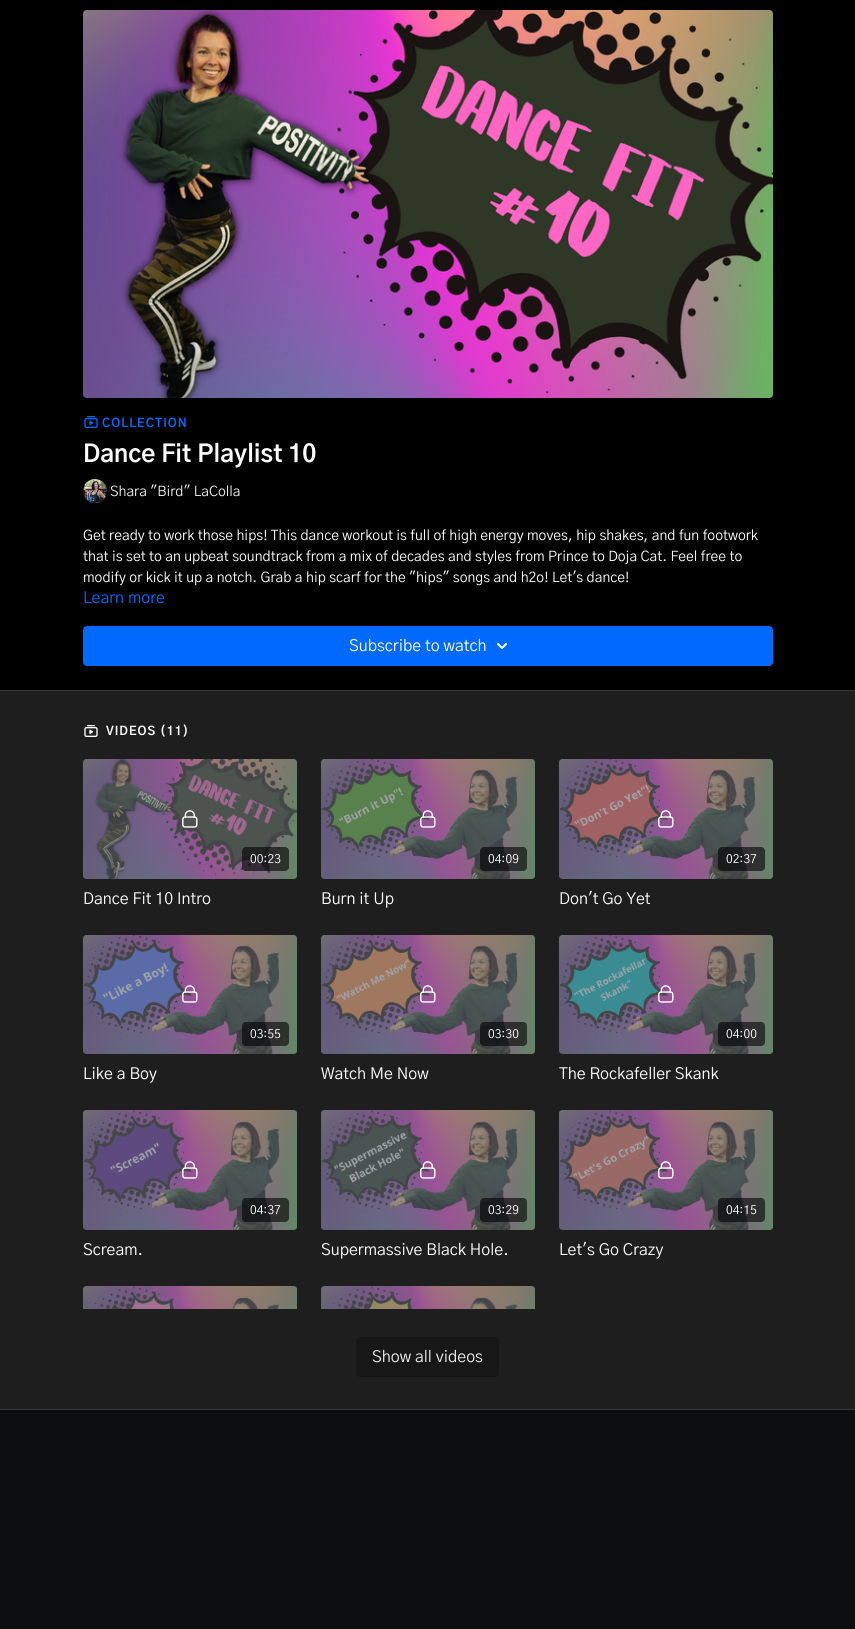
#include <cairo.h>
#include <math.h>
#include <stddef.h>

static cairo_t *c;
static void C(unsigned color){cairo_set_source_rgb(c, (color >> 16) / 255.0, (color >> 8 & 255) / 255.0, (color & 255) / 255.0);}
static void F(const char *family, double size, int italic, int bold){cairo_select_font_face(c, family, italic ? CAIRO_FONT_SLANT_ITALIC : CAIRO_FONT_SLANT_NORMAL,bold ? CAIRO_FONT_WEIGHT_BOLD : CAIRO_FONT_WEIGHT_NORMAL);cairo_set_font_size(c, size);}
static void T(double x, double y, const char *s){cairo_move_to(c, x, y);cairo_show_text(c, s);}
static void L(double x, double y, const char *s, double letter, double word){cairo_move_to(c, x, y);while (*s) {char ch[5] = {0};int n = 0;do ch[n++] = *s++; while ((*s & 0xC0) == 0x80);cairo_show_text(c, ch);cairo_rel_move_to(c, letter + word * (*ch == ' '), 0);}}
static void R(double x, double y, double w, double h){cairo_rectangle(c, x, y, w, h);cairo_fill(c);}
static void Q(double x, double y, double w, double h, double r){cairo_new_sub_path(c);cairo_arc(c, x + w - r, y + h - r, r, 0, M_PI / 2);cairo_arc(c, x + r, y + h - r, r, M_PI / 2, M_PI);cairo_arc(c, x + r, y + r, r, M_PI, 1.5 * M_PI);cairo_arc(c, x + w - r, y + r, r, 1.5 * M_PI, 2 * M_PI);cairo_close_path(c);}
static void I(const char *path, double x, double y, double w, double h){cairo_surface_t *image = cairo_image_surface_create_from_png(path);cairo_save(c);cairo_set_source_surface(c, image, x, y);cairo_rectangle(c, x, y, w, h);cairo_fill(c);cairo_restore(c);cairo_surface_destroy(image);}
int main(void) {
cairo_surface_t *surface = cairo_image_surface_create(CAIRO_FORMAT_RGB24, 855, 1629);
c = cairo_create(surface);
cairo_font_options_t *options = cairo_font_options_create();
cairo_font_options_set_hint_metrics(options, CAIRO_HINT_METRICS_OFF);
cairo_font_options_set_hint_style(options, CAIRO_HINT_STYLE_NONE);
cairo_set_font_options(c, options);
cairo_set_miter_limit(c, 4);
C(0x0d0e10);
cairo_paint(c);
C(0x000000);
R(0,0,855,690);
I("1.png",83,10,690,388);
I("2.png",84,416,14,12);
F("Gothic A1",12,0,1);
C(0x006aff);
L(102,427,"COLLECTION",1,0);
F("Gothic A1",24,0,1);
C(0xffffff);
T(83,462,"Dance Fit Playlist 10");
I("3.png",83,479,24,24);
F("Gothic A1",14,0,0);
C(0xeeeeee);
T(110,496,"Shara \"Bird\" LaColla");
C(0xffffff);
T(83,540,"Get ready to work those hips! This dance workout is full of high energy moves, hip shakes, and fun footwork");
T(83,561,"that is set to an upbeat soundtrack from a mix of decades and styles from Prince to Doja Cat. Feel free to");
T(83,582,"modify or kick it up a notch. Grab a hip scarf for the \"hips\" songs and h2o! Let's dance!");
F("Gothic A1",16,0,0);
C(0x006aff);
T(83,603,"Learn more");
Q(83,626,690,40,4);
cairo_fill(c);
C(0xffffff);
T(349,651,"Subscribe to watch");
I("4.png",497,643,10,6);
C(0x1e1e1e);
R(0,691,855,718);
C(0x373737);
R(0,690,855,1);
R(0,1409,855,1);
I("5.png",84,725,14,12);
F("Gothic A1",12,0,1);
C(0xffffff);
L(106,735,"VIDEOS (11)",1,0);
I("6.png",83,759,214,120);
cairo_set_source_rgba(c,0.384,0.404,0.427,0.6);
Q(83,759,214,120,4);
cairo_fill(c);
I("7.png",182,810,16,18);
cairo_set_source_rgba(c,0,0,0,0.6);
Q(242,847,47,24,4);
cairo_fill(c);
F("Gothic A1",12,0,0);
C(0xffffff);
T(250,863,"00:23");
F("Gothic A1",16,0,0);
T(83,904,"Dance Fit 10 Intro");
I("8.png",321,759,214,120);
cairo_set_source_rgba(c,0.384,0.404,0.427,0.6);
Q(321,759,214,120,4);
cairo_fill(c);
I("9.png",420,810,16,18);
cairo_set_source_rgba(c,0,0,0,0.6);
Q(480,847,47,24,4);
cairo_fill(c);
F("Gothic A1",12,0,0);
C(0xffffff);
T(488,863,"04:09");
F("Gothic A1",16,0,0);
T(321,904,"Burn it Up");
I("10.png",559,759,214,120);
cairo_set_source_rgba(c,0.384,0.404,0.427,0.6);
Q(559,759,214,120,4);
cairo_fill(c);
I("11.png",658,810,16,18);
cairo_set_source_rgba(c,0,0,0,0.6);
Q(718,847,47,24,4);
cairo_fill(c);
F("Gothic A1",12,0,0);
C(0xffffff);
T(726,863,"02:37");
F("Gothic A1",16,0,0);
T(559,904,"Don't Go Yet");
I("12.png",83,935,214,119);
cairo_set_source_rgba(c,0.384,0.404,0.427,0.6);
Q(83,935,214,119,4);
cairo_fill(c);
I("13.png",182,985,16,18);
cairo_set_source_rgba(c,0,0,0,0.6);
Q(242,1022,47,24,4);
cairo_fill(c);
F("Gothic A1",12,0,0);
C(0xffffff);
T(250,1038,"03:55");
F("Gothic A1",16,0,0);
T(83,1079,"Like a Boy");
I("14.png",321,935,214,119);
cairo_set_source_rgba(c,0.384,0.404,0.427,0.6);
Q(321,935,214,119,4);
cairo_fill(c);
I("15.png",420,985,16,18);
cairo_set_source_rgba(c,0,0,0,0.6);
Q(480,1022,47,24,4);
cairo_fill(c);
F("Gothic A1",12,0,0);
C(0xffffff);
T(488,1038,"03:30");
F("Gothic A1",16,0,0);
T(321,1079,"Watch Me Now");
I("16.png",559,935,214,119);
cairo_set_source_rgba(c,0.384,0.404,0.427,0.6);
Q(559,935,214,119,4);
cairo_fill(c);
I("17.png",658,985,16,18);
cairo_set_source_rgba(c,0,0,0,0.6);
Q(718,1022,47,24,4);
cairo_fill(c);
F("Gothic A1",12,0,0);
C(0xffffff);
T(726,1038,"04:00");
F("Gothic A1",16,0,0);
T(559,1079,"The Rockafeller Skank");
I("18.png",83,1110,214,120);
cairo_set_source_rgba(c,0.384,0.404,0.427,0.6);
Q(83,1110,214,120,4);
cairo_fill(c);
I("19.png",182,1161,16,18);
cairo_set_source_rgba(c,0,0,0,0.6);
Q(242,1198,47,24,4);
cairo_fill(c);
F("Gothic A1",12,0,0);
C(0xffffff);
T(250,1214,"04:37");
F("Gothic A1",16,0,0);
T(83,1255,"Scream.");
I("20.png",321,1110,214,120);
cairo_set_source_rgba(c,0.384,0.404,0.427,0.6);
Q(321,1110,214,120,4);
cairo_fill(c);
I("21.png",420,1161,16,18);
cairo_set_source_rgba(c,0,0,0,0.6);
Q(480,1198,47,24,4);
cairo_fill(c);
F("Gothic A1",12,0,0);
C(0xffffff);
T(488,1214,"03:29");
F("Gothic A1",16,0,0);
T(321,1255,"Supermassive Black Hole.");
I("22.png",559,1110,214,120);
cairo_set_source_rgba(c,0.384,0.404,0.427,0.6);
Q(559,1110,214,120,4);
cairo_fill(c);
I("23.png",658,1161,16,18);
cairo_set_source_rgba(c,0,0,0,0.6);
Q(718,1198,47,24,4);
cairo_fill(c);
F("Gothic A1",12,0,0);
C(0xffffff);
T(726,1214,"04:15");
F("Gothic A1",16,0,0);
T(559,1255,"Let's Go Crazy");
I("24.png",83,1286,214,23);
cairo_set_source_rgba(c,0.384,0.404,0.427,0.6);
cairo_new_path(c);
cairo_move_to(c,87,1286);
cairo_line_to(c,293,1286);
cairo_curve_to(c,295,1286,297,1288,297,1290);
cairo_line_to(c,297,1309);
cairo_line_to(c,83,1309);
cairo_line_to(c,83,1290);
cairo_curve_to(c,83,1288,85,1286,87,1286);
cairo_close_path(c);
cairo_fill(c);
I("25.png",321,1286,214,23);
cairo_new_path(c);
cairo_move_to(c,325,1286);
cairo_line_to(c,531,1286);
cairo_curve_to(c,533,1286,535,1288,535,1290);
cairo_line_to(c,535,1309);
cairo_line_to(c,321,1309);
cairo_line_to(c,321,1290);
cairo_curve_to(c,321,1288,323,1286,325,1286);
cairo_close_path(c);
cairo_fill(c);
C(0x171717);
Q(356,1337,143,40,4);
cairo_fill(c);
C(0xeeeeee);
T(372,1362,"Show all videos");
cairo_surface_write_to_png(surface, "o.png");
cairo_font_options_destroy(options);
cairo_destroy(c);
cairo_surface_destroy(surface);
return 0;
}
